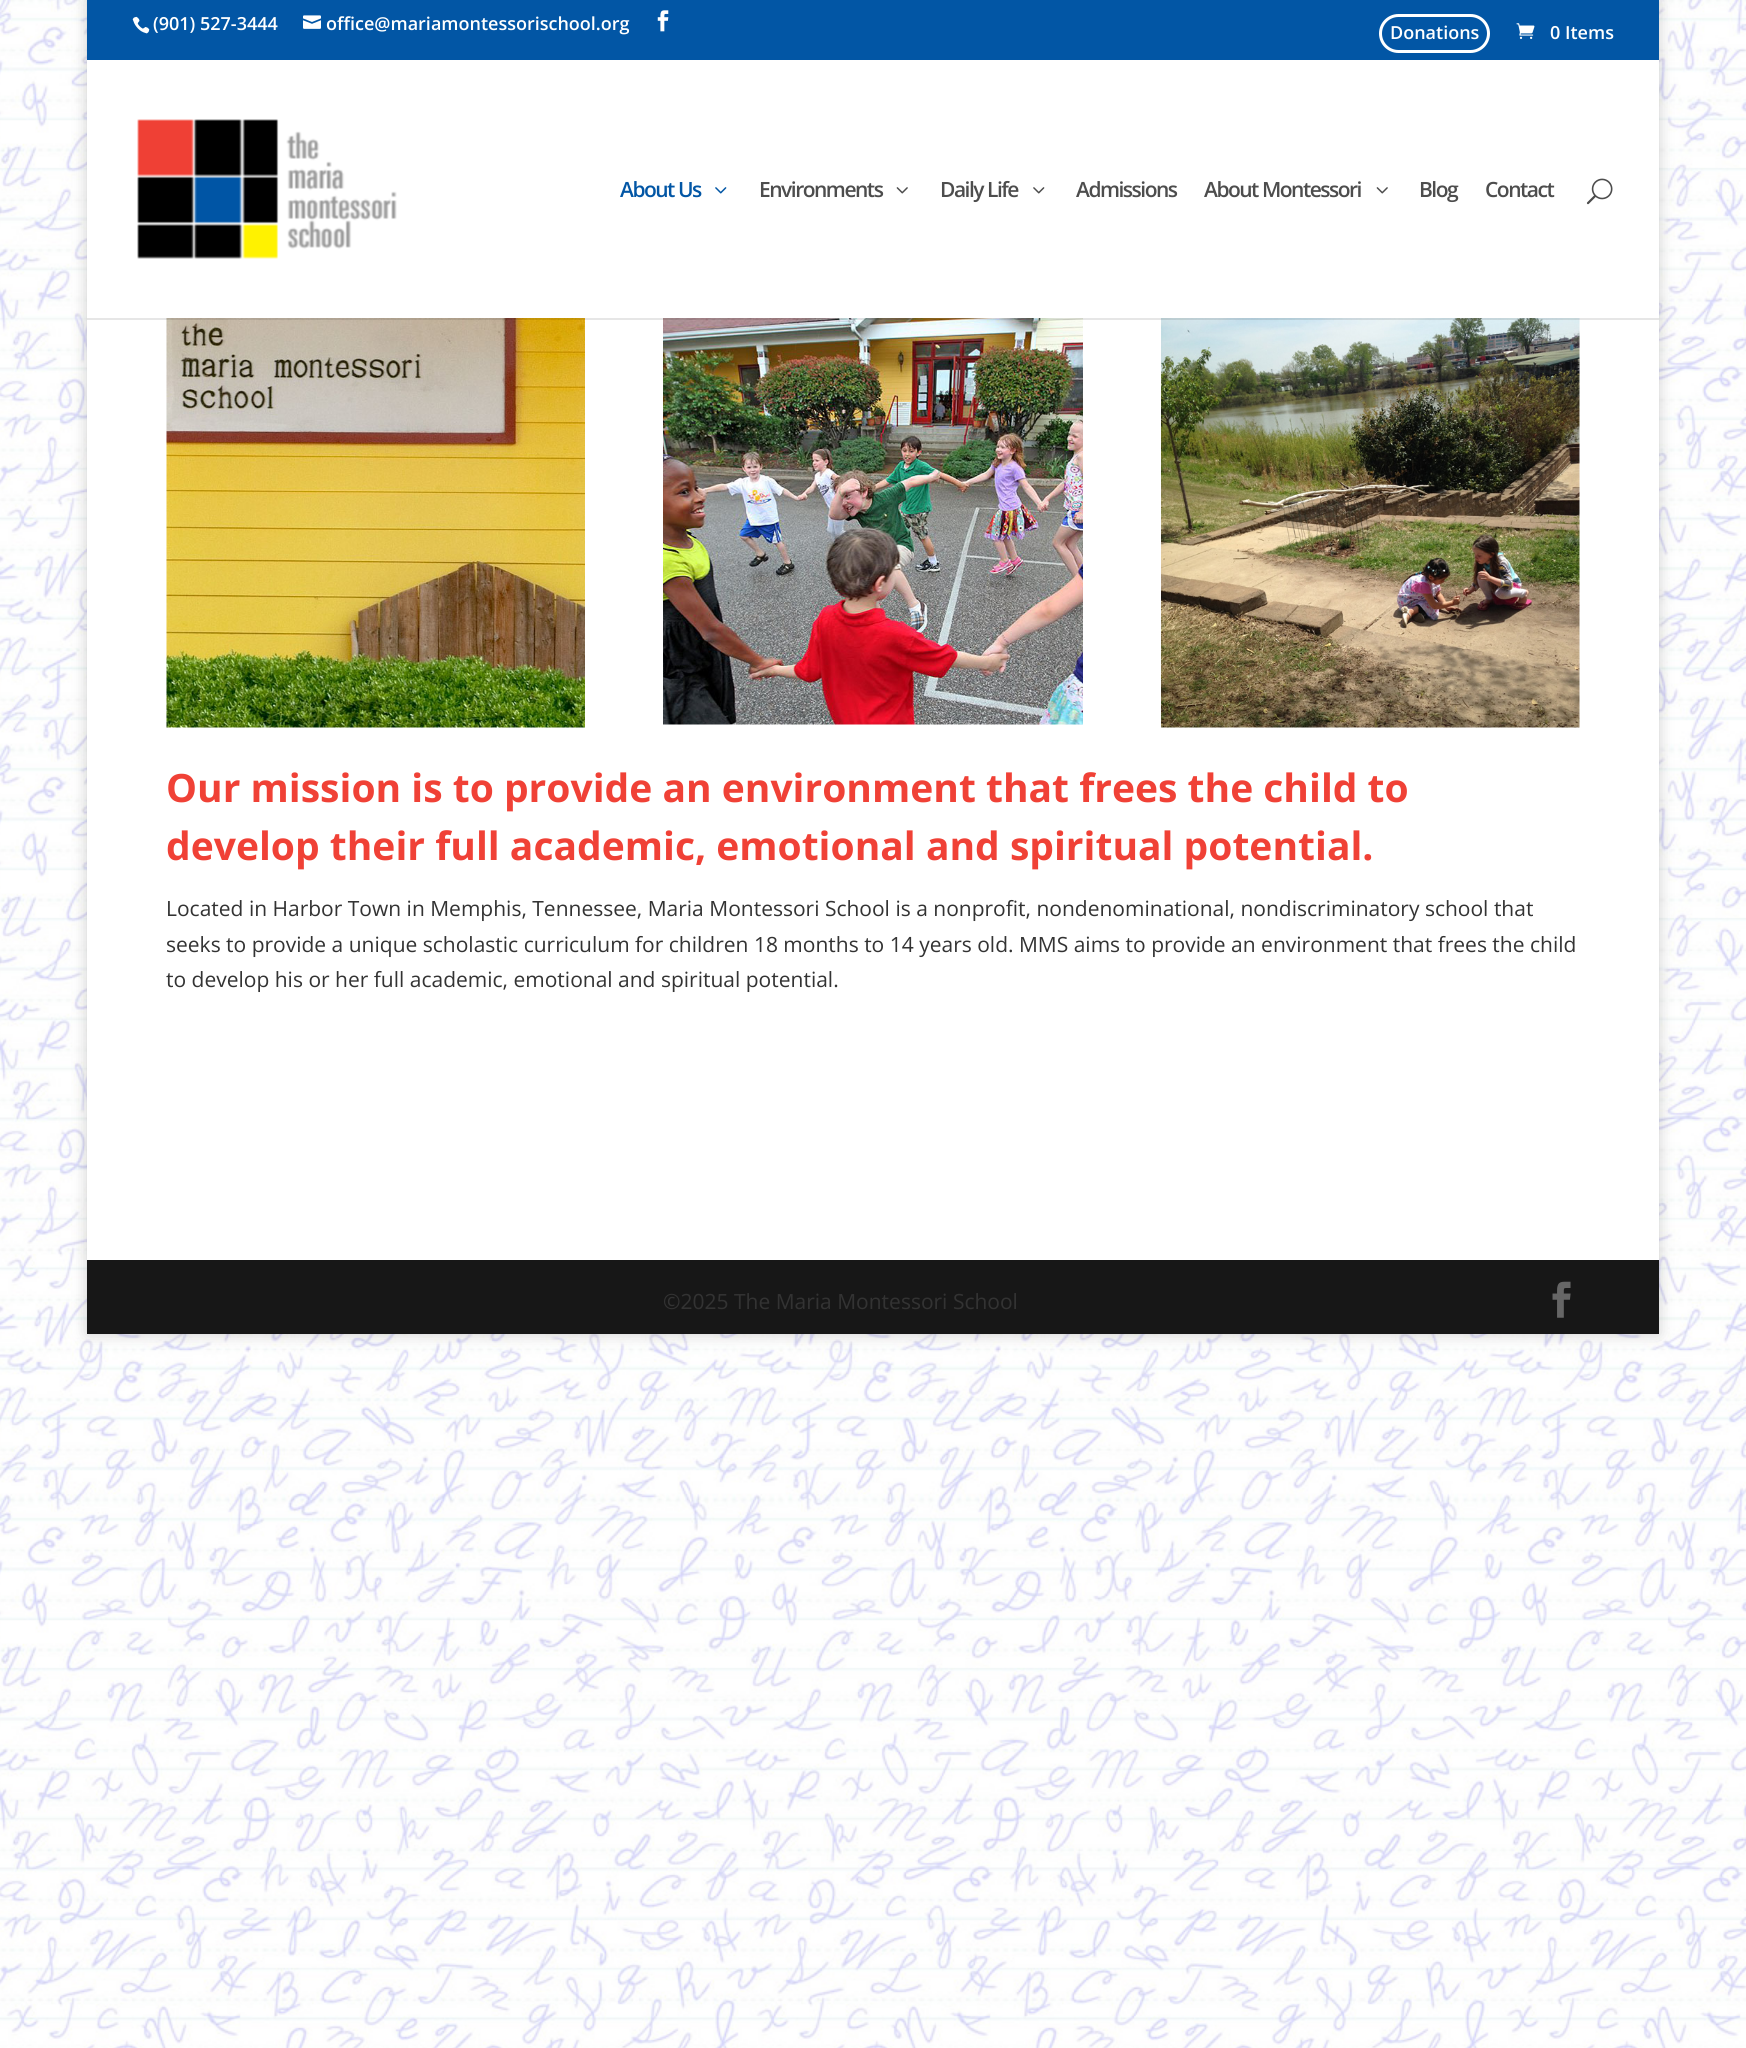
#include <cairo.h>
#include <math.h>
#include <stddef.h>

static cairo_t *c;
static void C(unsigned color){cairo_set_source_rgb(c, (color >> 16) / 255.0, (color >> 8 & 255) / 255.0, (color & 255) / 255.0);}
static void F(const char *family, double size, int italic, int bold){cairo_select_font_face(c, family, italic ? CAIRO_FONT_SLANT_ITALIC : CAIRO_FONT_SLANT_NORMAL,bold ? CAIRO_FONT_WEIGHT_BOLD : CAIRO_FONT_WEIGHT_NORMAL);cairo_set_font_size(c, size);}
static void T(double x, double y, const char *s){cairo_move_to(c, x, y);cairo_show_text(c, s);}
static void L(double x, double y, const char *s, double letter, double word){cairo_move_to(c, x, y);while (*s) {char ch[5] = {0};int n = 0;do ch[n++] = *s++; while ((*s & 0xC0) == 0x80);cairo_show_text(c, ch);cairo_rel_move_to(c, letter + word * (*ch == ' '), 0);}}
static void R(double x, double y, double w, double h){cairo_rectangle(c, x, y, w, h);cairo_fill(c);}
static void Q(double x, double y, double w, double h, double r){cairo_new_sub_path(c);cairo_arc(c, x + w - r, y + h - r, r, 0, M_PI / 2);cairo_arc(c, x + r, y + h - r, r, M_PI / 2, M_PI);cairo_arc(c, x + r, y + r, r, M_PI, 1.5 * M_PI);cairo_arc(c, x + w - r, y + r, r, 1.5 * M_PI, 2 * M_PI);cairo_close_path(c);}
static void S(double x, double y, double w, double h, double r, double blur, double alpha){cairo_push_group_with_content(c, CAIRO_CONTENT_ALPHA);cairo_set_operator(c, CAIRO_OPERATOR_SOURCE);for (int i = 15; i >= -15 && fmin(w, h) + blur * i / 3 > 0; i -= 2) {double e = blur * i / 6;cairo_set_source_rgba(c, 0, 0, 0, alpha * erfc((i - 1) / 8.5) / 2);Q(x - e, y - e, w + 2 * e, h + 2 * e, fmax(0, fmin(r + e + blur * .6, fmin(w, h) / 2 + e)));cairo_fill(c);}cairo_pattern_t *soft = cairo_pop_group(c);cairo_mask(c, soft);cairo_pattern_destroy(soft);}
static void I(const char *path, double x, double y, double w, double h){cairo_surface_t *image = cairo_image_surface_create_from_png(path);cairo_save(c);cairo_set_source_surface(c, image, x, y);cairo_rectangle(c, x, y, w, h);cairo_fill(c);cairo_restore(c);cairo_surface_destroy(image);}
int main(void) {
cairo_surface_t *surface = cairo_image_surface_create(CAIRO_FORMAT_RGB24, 1746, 2048);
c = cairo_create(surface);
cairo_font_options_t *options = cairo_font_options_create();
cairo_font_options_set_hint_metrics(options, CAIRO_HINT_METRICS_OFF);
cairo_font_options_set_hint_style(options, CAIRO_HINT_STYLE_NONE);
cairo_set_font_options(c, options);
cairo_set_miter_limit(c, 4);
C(0xffffff);
cairo_paint(c);
I("1.png",0,0,1746,2048);
C(0x000000);
S(87,0,1572,1334,0,7.5,.2);
C(0x0256a5);
R(87,0,1572,60);
I("2.png",132,16,18,18);
F("Open Sans SemiBold",18,0,0);
C(0xffffff);
T(153,30,"(901) 527-3444");
I("3.png",303,15,18,14);
T(326,30,"office@mariamontessorischool.org");
I("4.png",657,10,12,22);
Q(1380.5,15.5,108,36,18);
cairo_set_line_width(c,3);
cairo_stroke(c);
T(1390,39,"Donations");
I("5.png",1516,23,19,16);
T(1550,39,"0 Items");
R(87,60,1572,1200);
I("11.png",166,318,419,410);
I("12.png",663,318,420,407);
I("13.png",1161,318,419,410);
cairo_set_source_rgba(c,0,0,0,0.1);
R(87,318,1572,2);
I("6.png",137,119,260,140);
F("Open Sans SemiBold",21,0,0);
C(0x0256a5);
L(620,197,"About Us",-1.5,0);
I("7.png",715,187,12,7);
C(0x4d4d4d);
L(759,197,"Environments",-1.5,0);
I("8.png",896,187,12,7);
L(940,197,"Daily Life",-1.5,0);
I("9.png",1033,187,12,7);
L(1076,197,"Admissions",-1.5,0);
L(1204,197,"About Montessori",-1.5,0);
I("8.png",1376,187,12,7);
L(1419,197,"Blog",-1.5,0);
L(1485,197,"Contact",-1.5,0);
I("10.png",1586,178,27,27);
F("Open Sans",39,0,1);
C(0xf04136);
T(166,802,"Our mission is to provide an environment that frees the child to");
T(166,860,"develop their full academic, emotional and spiritual potential.");
F("Open Sans",21,0,0);
C(0x333333);
T(166,916,"Located in Harbor Town in Memphis, Tennessee, Maria Montessori School is a nonprofit, nondenominational, nondiscriminatory school that");
T(166,952,"seeks to provide a unique scholastic curriculum for children 18 months to 14 years old. MMS aims to provide an environment that frees the child");
T(166,987,"to develop his or her full academic, emotional and spiritual potential.");
C(0x171717);
R(87,1260,1572,74);
C(0x333333);
T(663,1309,"©2025 The Maria Montessori School");
I("14.png",1552,1281,19,37);
cairo_surface_write_to_png(surface, "o.png");
cairo_font_options_destroy(options);
cairo_destroy(c);
cairo_surface_destroy(surface);
return 0;
}
